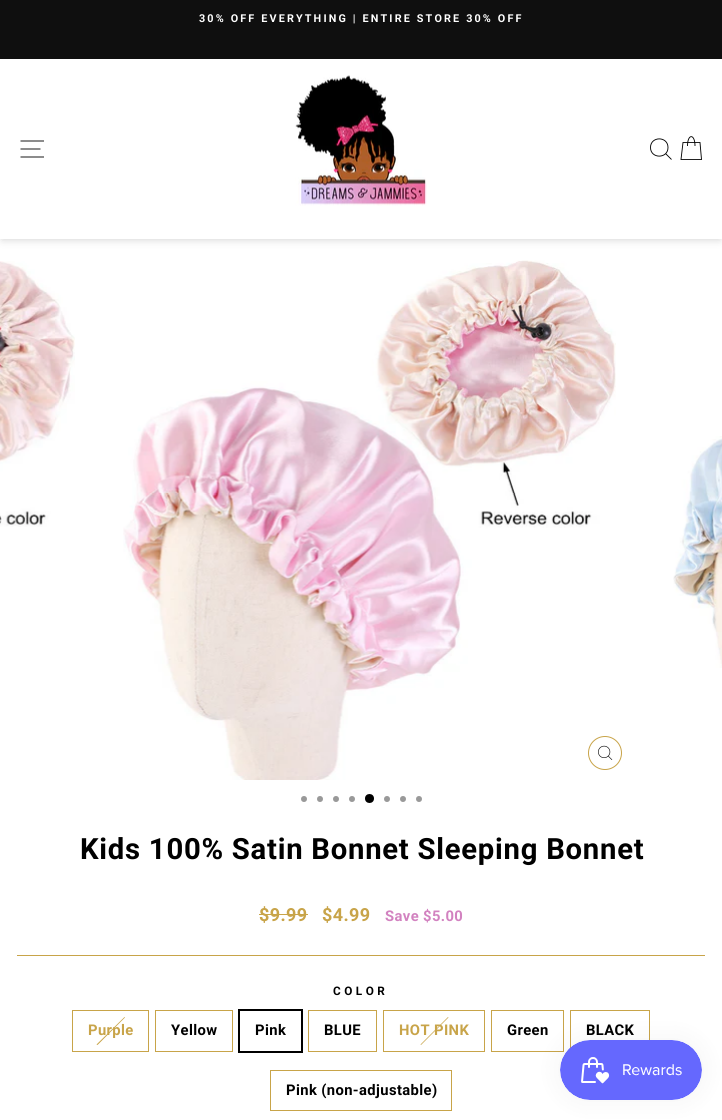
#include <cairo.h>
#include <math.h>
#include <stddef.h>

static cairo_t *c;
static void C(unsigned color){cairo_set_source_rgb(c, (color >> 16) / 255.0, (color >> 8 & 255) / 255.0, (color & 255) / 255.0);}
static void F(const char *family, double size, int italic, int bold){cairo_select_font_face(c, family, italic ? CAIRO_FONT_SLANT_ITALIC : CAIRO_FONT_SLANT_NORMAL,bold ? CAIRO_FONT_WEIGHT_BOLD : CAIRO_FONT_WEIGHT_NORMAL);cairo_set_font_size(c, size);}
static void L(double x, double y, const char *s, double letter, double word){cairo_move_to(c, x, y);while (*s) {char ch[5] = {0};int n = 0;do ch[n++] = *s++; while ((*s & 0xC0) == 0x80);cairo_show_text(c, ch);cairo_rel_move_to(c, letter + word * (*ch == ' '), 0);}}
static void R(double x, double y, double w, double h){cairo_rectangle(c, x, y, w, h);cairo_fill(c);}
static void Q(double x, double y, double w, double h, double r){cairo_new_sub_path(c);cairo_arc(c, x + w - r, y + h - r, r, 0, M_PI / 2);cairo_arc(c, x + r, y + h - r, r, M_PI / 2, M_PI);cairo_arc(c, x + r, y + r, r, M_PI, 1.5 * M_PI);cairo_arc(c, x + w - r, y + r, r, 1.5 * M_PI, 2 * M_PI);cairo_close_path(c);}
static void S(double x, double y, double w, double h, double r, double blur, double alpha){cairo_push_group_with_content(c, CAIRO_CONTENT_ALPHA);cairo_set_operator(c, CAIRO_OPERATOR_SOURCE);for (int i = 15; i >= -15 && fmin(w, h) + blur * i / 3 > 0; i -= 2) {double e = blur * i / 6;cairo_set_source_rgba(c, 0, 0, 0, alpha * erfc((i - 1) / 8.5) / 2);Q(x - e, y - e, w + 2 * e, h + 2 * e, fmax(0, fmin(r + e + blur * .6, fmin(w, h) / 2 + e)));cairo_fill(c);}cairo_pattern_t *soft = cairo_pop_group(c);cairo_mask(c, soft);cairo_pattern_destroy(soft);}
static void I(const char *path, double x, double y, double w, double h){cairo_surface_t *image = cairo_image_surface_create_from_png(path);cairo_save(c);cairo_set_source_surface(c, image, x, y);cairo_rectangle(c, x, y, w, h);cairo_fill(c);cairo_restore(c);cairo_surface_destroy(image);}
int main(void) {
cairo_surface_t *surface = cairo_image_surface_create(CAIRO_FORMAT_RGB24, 722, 1120);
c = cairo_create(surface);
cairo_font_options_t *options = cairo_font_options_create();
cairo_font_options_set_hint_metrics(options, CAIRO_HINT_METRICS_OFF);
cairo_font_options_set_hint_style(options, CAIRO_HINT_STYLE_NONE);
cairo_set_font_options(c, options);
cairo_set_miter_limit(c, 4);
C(0xffffff);
cairo_paint(c);
C(0x0f0f0f);
R(0,0,722,59);
F("Roboto",10.8,0,1);
C(0xffffff);
L(199,22,"30% OFF EVERYTHING | ENTIRE STORE 30% OFF",2.15,0);
cairo_save(c);
cairo_set_fill_rule(c,CAIRO_FILL_RULE_EVEN_ODD);
cairo_new_path(c);
cairo_move_to(c,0,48);
cairo_line_to(c,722,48);
cairo_line_to(c,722,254);
cairo_line_to(c,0,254);
cairo_close_path(c);
cairo_move_to(c,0,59);
cairo_line_to(c,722,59);
cairo_line_to(c,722,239);
cairo_line_to(c,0,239);
cairo_close_path(c);
cairo_clip(c);
C(0x000000);
S(2,63,718,176,0,4.5,.2);
cairo_restore(c);
cairo_new_path(c);
cairo_move_to(c,20.5,141);
cairo_line_to(c,44,141);
cairo_move_to(c,20.5,149);
cairo_line_to(c,40.5,149);
cairo_move_to(c,20.5,157);
cairo_line_to(c,44,157);
C(0x000000);
cairo_set_line_width(c,.9);
cairo_stroke(c);
I("1.png",295,75,132,131);
cairo_new_path(c);
cairo_move_to(c,668,147.5);
cairo_curve_to(c,668,159,650.5,159,650.5,147.5);
cairo_curve_to(c,650.5,136,668,136,668,147.5);
cairo_close_path(c);
cairo_move_to(c,671.5,159.5);
cairo_line_to(c,665.5,153.5);
cairo_move_to(c,687.5,146);
cairo_curve_to(c,687.5,133.5,695,133.5,695,146);
cairo_move_to(c,683,142.5);
cairo_line_to(c,700,142.5);
cairo_line_to(c,701.5,159.5);
cairo_line_to(c,681,159.5);
cairo_close_path(c);
cairo_stroke(c);
I("2.png",0,261,75,266);
I("3.png",123,260,493,520);
cairo_arc(c,605,753,16.5,0,2 * M_PI);
C(0xc8a449);
cairo_set_line_width(c,1);
cairo_stroke(c);
I("4.png",598,745,15,15);
I("5.png",673,436,49,232);
C(0x999999);
cairo_arc(c,304,799,3,0,2 * M_PI);
cairo_fill(c);
cairo_arc(c,320,799,3,0,2 * M_PI);
cairo_fill(c);
cairo_arc(c,336,799,3,0,2 * M_PI);
cairo_fill(c);
cairo_arc(c,352,799,3,0,2 * M_PI);
cairo_fill(c);
C(0x000000);
cairo_arc(c,369.5,798.5,4.5,0,2 * M_PI);
cairo_fill(c);
C(0x999999);
cairo_arc(c,387,799,3,0,2 * M_PI);
cairo_fill(c);
cairo_arc(c,403,799,3,0,2 * M_PI);
cairo_fill(c);
cairo_arc(c,419,799,3,0,2 * M_PI);
cairo_fill(c);
F("Roboto",29.25,0,1);
C(0x000000);
L(80,859,"Kids 100% Satin Bonnet Sleeping Bonnet",.75,0);
F("Roboto",18,0,1);
C(0xc8a449);
L(259,921,"$9.99",.4,0);
R(259,914,49,1);
L(322,921,"$4.99",.4,0);
F("Roboto",14.75,0,1);
C(0xd282c0);
L(385,921,"Save $5.00",.4,0);
C(0xc8a449);
R(17,955,688,1);
F("Roboto",11.75,0,1);
C(0x000000);
L(333,995,"COLOR",3.5,0);
cairo_rectangle(c,72.5,1010.5,76,41);
C(0xc8a449);
cairo_stroke(c);
cairo_new_path(c);
cairo_move_to(c,124.5,1017);
cairo_line_to(c,125,1017.5);
cairo_line_to(c,97.5,1045);
cairo_line_to(c,96.5,1044.5);
cairo_close_path(c);
cairo_fill(c);
F("Roboto",14.75,0,1);
L(88,1035,"Purple",.4,0);
cairo_rectangle(c,155.5,1010.5,77,41);
cairo_stroke(c);
C(0x000000);
L(171,1035,"Yellow",.4,0);
cairo_rectangle(c,239,1010,63,42);
cairo_set_line_width(c,2);
cairo_stroke(c);
L(255,1035,"Pink",.4,0);
cairo_rectangle(c,308.5,1010.5,68,41);
C(0xc8a449);
cairo_set_line_width(c,1);
cairo_stroke(c);
C(0x000000);
L(324,1035,"BLUE",.4,0);
cairo_rectangle(c,383.5,1010.5,101,41);
C(0xc8a449);
cairo_stroke(c);
cairo_new_path(c);
cairo_move_to(c,448,1017);
cairo_line_to(c,448.5,1017.5);
cairo_line_to(c,421,1045);
cairo_line_to(c,420.5,1044.5);
cairo_close_path(c);
cairo_fill(c);
L(399,1035,"HOT PINK",.4,0);
cairo_rectangle(c,491.5,1010.5,72,41);
cairo_stroke(c);
C(0x000000);
L(507,1035,"Green",.4,0);
cairo_rectangle(c,570.5,1010.5,79,41);
C(0xc8a449);
cairo_stroke(c);
C(0x000000);
L(586,1035,"BLACK",.4,0);
cairo_rectangle(c,270.5,1070.5,181,40);
C(0xc8a449);
cairo_stroke(c);
C(0x000000);
L(286,1095,"Pink (non-adjustable)",.4,0);
C(0x000000);
S(560,1040,142,60,30,12.5,.05);
I("6.png",560,1040,142,60);
cairo_surface_write_to_png(surface, "o.png");
cairo_font_options_destroy(options);
cairo_destroy(c);
cairo_surface_destroy(surface);
return 0;
}
